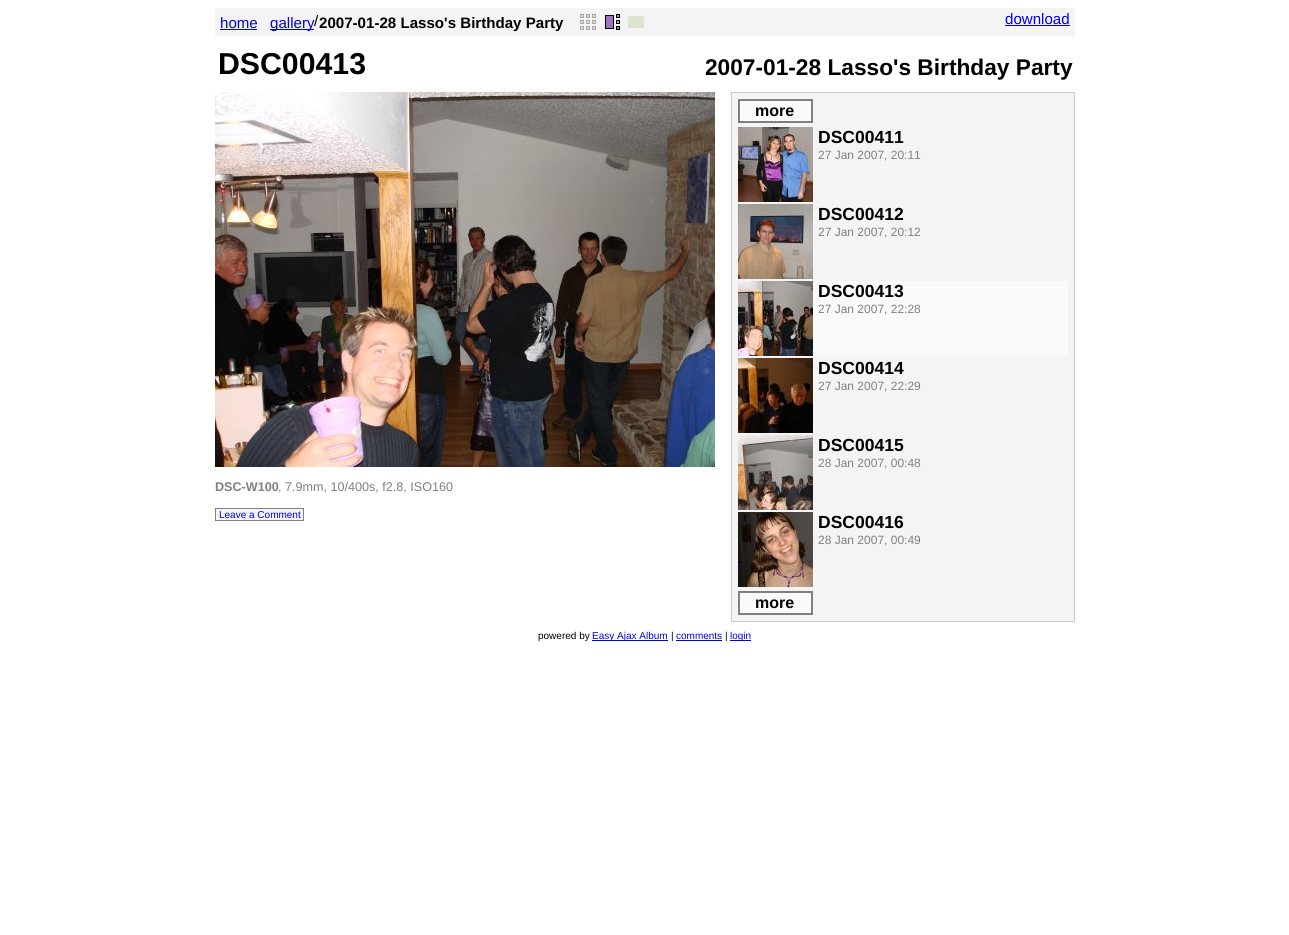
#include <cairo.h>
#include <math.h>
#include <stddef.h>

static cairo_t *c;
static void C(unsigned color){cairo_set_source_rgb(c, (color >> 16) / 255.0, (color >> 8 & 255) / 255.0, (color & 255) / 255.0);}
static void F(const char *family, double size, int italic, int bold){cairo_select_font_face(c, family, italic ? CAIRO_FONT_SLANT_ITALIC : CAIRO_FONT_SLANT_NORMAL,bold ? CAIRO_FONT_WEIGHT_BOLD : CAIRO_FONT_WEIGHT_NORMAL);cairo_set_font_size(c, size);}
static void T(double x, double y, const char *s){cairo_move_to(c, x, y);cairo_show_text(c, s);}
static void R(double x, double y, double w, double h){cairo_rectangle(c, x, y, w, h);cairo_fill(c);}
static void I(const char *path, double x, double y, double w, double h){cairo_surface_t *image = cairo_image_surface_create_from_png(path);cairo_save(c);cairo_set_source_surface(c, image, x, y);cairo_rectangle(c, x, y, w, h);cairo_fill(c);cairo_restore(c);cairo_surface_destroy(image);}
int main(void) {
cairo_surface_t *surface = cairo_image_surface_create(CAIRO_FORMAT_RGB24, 1289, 935);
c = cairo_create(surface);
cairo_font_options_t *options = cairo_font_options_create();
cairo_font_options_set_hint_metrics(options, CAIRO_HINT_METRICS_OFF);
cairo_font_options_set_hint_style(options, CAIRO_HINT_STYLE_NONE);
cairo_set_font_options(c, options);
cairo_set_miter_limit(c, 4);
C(0xffffff);
cairo_paint(c);
C(0xf4f4f4);
R(215,8,860,28);
F("Liberation Sans",15.1,0,0);
C(0x0000ee);
T(220,28,"home");
R(220,29,37,1);
R(270,29,44,1);
T(270,28,"gallery");
C(0x000000);
T(314,26,"/");
F("Liberation Sans",15.1,0,1);
T(319,28,"2007-01-28 Lasso's Birthday Party");
I("1.png",580,14,16,16);
I("2.png",605,14,15,16);
C(0xdbe4ce);
R(628,16,16,12);
F("Liberation Sans",15.1,0,0);
C(0x0000ee);
T(1005,24,"download");
R(1005,25,65,1);
F("Liberation Sans",30.25,0,1);
C(0x000000);
T(218,74,"DSC00413");
F("Liberation Sans",22.7,0,1);
T(705,75,"2007-01-28 Lasso's Birthday Party");
I("3.png",215,92,500,375);
F("Liberation Sans",12.6,0,1);
C(0x808080);
T(215,491,"DSC-W100");
F("Liberation Sans",12.6,0,0);
T(278,491,", 7.9mm, 10/400s, f2.8, ISO160");
C(0xf4f4f4);
cairo_rectangle(c,215.5,508.5,88,12);
cairo_fill_preserve(c);
C(0x808080);
cairo_set_line_width(c,1);
cairo_stroke(c);
F("Liberation Sans",10,0,0);
C(0x0000ee);
T(219,518,"Leave a Comment");
C(0xf4f4f4);
cairo_rectangle(c,731.5,92.5,343,529);
cairo_fill_preserve(c);
C(0xcccccc);
cairo_stroke(c);
C(0xfafafa);
cairo_rectangle(c,739,100,73,22);
cairo_fill_preserve(c);
C(0x808080);
cairo_set_line_width(c,2);
cairo_stroke(c);
F("Liberation Sans",16,0,1);
C(0x000000);
T(755,116,"more");
I("4.png",738,127,75,75);
F("Liberation Sans",17.5,0,1);
T(818,143,"DSC00411");
F("Liberation Sans",12,0,0);
C(0x808080);
T(818,159,"27 Jan 2007, 20:11");
I("5.png",738,204,75,75);
F("Liberation Sans",17.5,0,1);
C(0x000000);
T(818,220,"DSC00412");
F("Liberation Sans",12,0,0);
C(0x808080);
T(818,236,"27 Jan 2007, 20:12");
C(0xfafafa);
R(813,281,255,75);
I("6.png",738,281,75,75);
F("Liberation Sans",17.5,0,1);
C(0x000000);
T(818,297,"DSC00413");
F("Liberation Sans",12,0,0);
C(0x808080);
T(818,313,"27 Jan 2007, 22:28");
I("7.png",738,358,75,75);
F("Liberation Sans",17.5,0,1);
C(0x000000);
T(818,374,"DSC00414");
F("Liberation Sans",12,0,0);
C(0x808080);
T(818,390,"27 Jan 2007, 22:29");
I("8.png",738,435,75,75);
F("Liberation Sans",17.5,0,1);
C(0x000000);
T(818,451,"DSC00415");
F("Liberation Sans",12,0,0);
C(0x808080);
T(818,467,"28 Jan 2007, 00:48");
I("9.png",738,512,75,75);
F("Liberation Sans",17.5,0,1);
C(0x000000);
T(818,528,"DSC00416");
F("Liberation Sans",12,0,0);
C(0x808080);
T(818,544,"28 Jan 2007, 00:49");
C(0xfafafa);
cairo_rectangle(c,739,592,73,22);
cairo_fill_preserve(c);
C(0x808080);
cairo_stroke(c);
F("Liberation Sans",16,0,1);
C(0x000000);
T(755,608,"more");
F("Liberation Sans",10,0,0);
T(538,639,"powered by");
C(0x0000ee);
R(592,640,76,1);
T(592,639,"Easy Ajax Album");
C(0x000000);
T(671,639,"|");
C(0x0000ee);
T(676,639,"comments");
R(676,640,46,1);
C(0x000000);
T(725,639,"|");
C(0x0000ee);
R(730,640,21,1);
T(730,639,"login");
cairo_surface_write_to_png(surface, "o.png");
cairo_font_options_destroy(options);
cairo_destroy(c);
cairo_surface_destroy(surface);
return 0;
}
